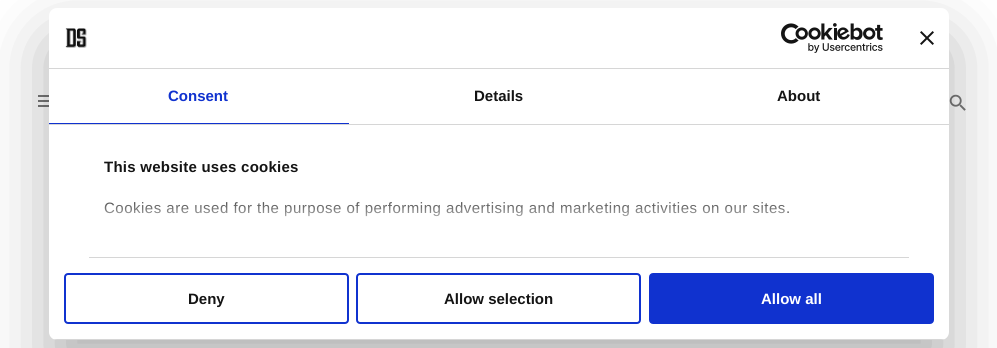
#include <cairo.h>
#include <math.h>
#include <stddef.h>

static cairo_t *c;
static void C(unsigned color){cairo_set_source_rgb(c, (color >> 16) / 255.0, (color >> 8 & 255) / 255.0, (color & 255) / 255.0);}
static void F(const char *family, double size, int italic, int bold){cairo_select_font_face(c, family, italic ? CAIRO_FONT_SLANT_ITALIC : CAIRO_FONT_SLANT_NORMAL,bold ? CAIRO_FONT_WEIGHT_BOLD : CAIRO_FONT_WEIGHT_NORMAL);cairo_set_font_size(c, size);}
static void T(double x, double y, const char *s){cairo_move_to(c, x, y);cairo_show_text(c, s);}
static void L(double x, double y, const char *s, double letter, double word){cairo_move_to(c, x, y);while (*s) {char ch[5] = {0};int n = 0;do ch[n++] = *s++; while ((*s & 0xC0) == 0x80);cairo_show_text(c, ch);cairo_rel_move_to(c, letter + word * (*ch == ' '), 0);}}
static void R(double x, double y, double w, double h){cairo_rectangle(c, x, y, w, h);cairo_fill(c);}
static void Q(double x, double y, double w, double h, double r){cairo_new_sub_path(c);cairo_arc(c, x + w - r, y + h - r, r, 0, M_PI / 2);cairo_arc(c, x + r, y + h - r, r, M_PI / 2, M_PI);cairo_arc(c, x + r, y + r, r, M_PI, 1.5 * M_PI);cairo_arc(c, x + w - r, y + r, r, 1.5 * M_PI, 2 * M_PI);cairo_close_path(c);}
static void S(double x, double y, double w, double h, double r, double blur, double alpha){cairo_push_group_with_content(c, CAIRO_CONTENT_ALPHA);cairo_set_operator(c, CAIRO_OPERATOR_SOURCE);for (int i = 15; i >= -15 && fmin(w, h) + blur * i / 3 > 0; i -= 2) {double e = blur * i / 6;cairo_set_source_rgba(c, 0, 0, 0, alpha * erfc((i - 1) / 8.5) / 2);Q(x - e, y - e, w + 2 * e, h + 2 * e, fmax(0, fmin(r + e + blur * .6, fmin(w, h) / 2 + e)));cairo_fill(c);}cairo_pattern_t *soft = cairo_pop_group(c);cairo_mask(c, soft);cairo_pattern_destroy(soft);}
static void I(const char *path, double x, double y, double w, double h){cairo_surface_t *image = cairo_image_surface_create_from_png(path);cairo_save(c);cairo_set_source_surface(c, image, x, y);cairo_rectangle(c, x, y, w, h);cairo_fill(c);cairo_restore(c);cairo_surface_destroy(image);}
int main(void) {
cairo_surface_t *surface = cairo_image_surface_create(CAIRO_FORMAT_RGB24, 997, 348);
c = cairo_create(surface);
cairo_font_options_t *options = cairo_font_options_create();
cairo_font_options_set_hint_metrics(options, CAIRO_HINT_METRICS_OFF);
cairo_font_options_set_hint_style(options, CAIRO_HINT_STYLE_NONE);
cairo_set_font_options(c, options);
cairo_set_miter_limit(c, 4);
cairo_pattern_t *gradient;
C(0xffffff);
cairo_paint(c);
C(0x777777);
R(38,105,11,2);
R(38,95,11,2);
R(38,100,11,2);
I("4.png",949,94,17,17);
C(0x000000);
S(49,40,900,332,8,34,.3);
C(0xffffff);
Q(49,8,900,332,8);
cairo_fill(c);
C(0xd6d6d6);
R(49,68,900,1);
I("1.png",65,28,22,20);
I("2.png",781,23,102,30);
I("3.png",920,31,14,14);
R(49,124,900,1);
C(0x1032cf);
R(49,123,300,1);
F("Liberation Sans",15,0,1);
T(168,101,"Consent");
C(0x141414);
T(474,101,"Details");
T(777,101,"About");
C(0xd6d6d6);
R(89,257,820,1);
C(0x141414);
L(104,172,"This website uses cookies",.25,0);
F("Liberation Sans",15,0,0);
L(104,213,"Cookies are used for the purpose of performing advertising and marketing activities on our sites.",.5,0);
gradient = cairo_pattern_create_linear(493,257,493,191);
cairo_pattern_add_color_stop_rgba(gradient,0,1,1,1,1);
cairo_pattern_add_color_stop_rgba(gradient,.5,1,1,1,.8);
cairo_pattern_add_color_stop_rgba(gradient,1,1,1,1,0);
cairo_set_source(c,gradient);
cairo_pattern_destroy(gradient);
R(104,202,684,15);
cairo_save(c);
Q(49,8,900,332,8);
cairo_clip(c);
C(0xd6d6d6);
R(49,339,900,1);
cairo_restore(c);
Q(65,274,283,49,3);
C(0x1032cf);
cairo_stroke(c);
F("Liberation Sans",15,0,1);
C(0x141414);
T(188,304,"Deny");
Q(357,274,283,49,3);
C(0x1032cf);
cairo_stroke(c);
C(0x141414);
T(444,304,"Allow selection");
C(0x1032cf);
Q(650,274,283,49,3);
cairo_fill_preserve(c);
cairo_stroke(c);
C(0xffffff);
T(761,304,"Allow all");
cairo_surface_write_to_png(surface, "o.png");
cairo_font_options_destroy(options);
cairo_destroy(c);
cairo_surface_destroy(surface);
return 0;
}
